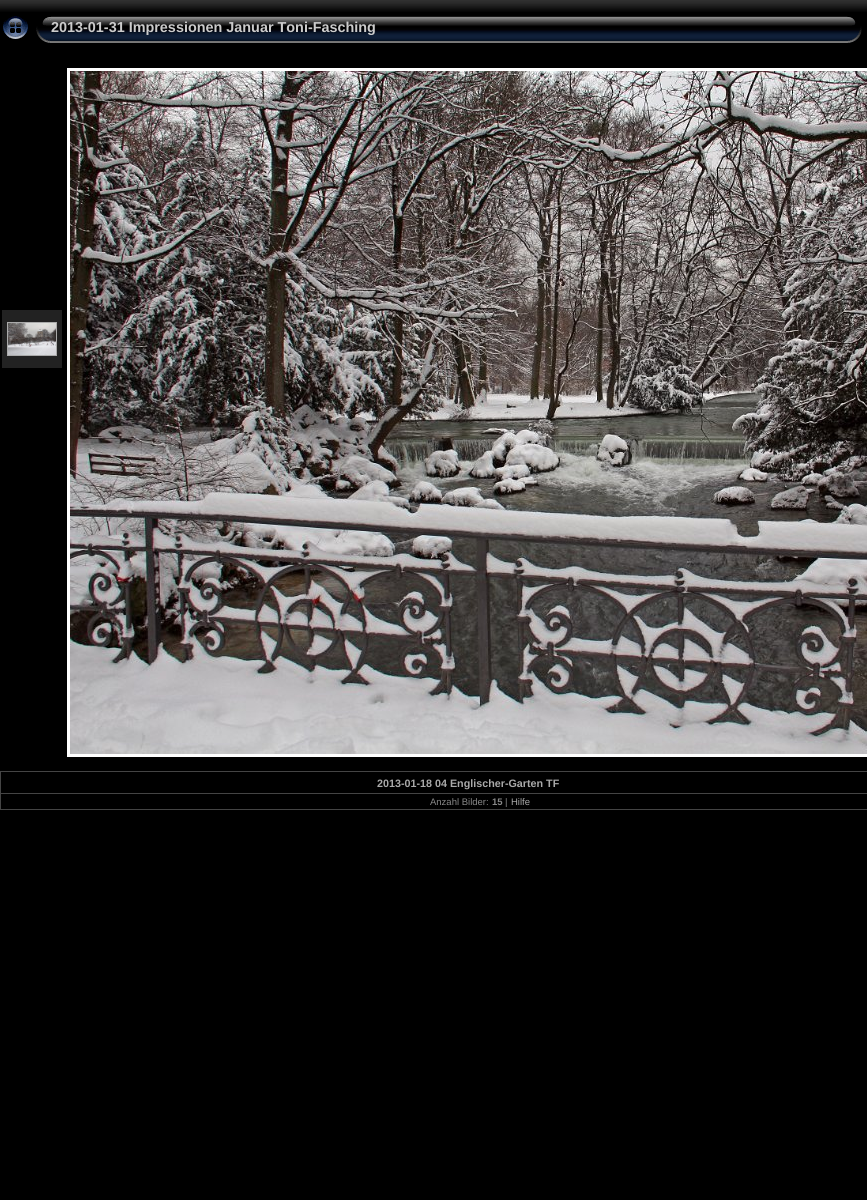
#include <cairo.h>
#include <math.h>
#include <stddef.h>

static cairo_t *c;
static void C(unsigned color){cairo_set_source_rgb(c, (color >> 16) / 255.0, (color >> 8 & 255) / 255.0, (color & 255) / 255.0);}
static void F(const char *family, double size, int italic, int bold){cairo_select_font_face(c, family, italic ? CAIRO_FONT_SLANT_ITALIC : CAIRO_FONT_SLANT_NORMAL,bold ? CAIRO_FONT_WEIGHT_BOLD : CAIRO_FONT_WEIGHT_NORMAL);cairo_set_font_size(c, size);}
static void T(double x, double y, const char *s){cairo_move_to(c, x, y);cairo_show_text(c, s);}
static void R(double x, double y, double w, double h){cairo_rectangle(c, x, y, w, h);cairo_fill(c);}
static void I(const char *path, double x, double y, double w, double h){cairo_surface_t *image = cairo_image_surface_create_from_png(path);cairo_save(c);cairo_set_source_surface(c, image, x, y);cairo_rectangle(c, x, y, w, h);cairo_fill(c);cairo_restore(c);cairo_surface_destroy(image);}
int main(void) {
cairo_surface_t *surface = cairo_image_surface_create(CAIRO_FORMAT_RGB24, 867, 1200);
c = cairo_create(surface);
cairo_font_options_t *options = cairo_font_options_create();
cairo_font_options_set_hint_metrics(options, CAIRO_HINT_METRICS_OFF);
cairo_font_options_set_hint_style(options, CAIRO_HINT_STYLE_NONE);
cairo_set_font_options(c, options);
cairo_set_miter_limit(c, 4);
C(0x000000);
cairo_paint(c);
I("1.png",0,0,867,12);
I("2.png",3,16,25,23);
I("3.png",36,16,15,27);
I("4.png",51,16,796,27);
F("Liberation Sans",14.4,0,1);
C(0xcccccc);
T(51,32,"2013-01-31 Impressionen Januar Toni-Fasching");
I("5.png",847,16,15,27);
C(0x222222);
R(2,310,60,58);
cairo_rectangle(c,7.5,322.5,49,33);
C(0xaaaaaa);
cairo_set_line_width(c,1);
cairo_stroke(c);
I("6.png",8,323,48,32);
cairo_rectangle(c,68.5,69.5,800,686);
C(0xffffff);
cairo_set_line_width(c,3);
cairo_stroke(c);
I("7.png",70,71,797,683);
C(0x444444);
R(0,771,867,1);
R(0,809,867,1);
R(0,771,1,39);
F("Liberation Sans",10.75,0,1);
C(0xaaaaaa);
T(377,787,"2013-01-18 04 Englischer-Garten TF");
C(0x444444);
R(0,793,867,1);
F("Liberation Sans",9.5,0,0);
C(0x888888);
T(430,805,"Anzahl Bilder:");
F("Liberation Sans",9.5,0,1);
T(492,805,"15");
F("Liberation Sans",9.5,0,0);
T(505,805,"|");
C(0xaaaaaa);
T(511,805,"Hilfe");
cairo_surface_write_to_png(surface, "o.png");
cairo_font_options_destroy(options);
cairo_destroy(c);
cairo_surface_destroy(surface);
return 0;
}
